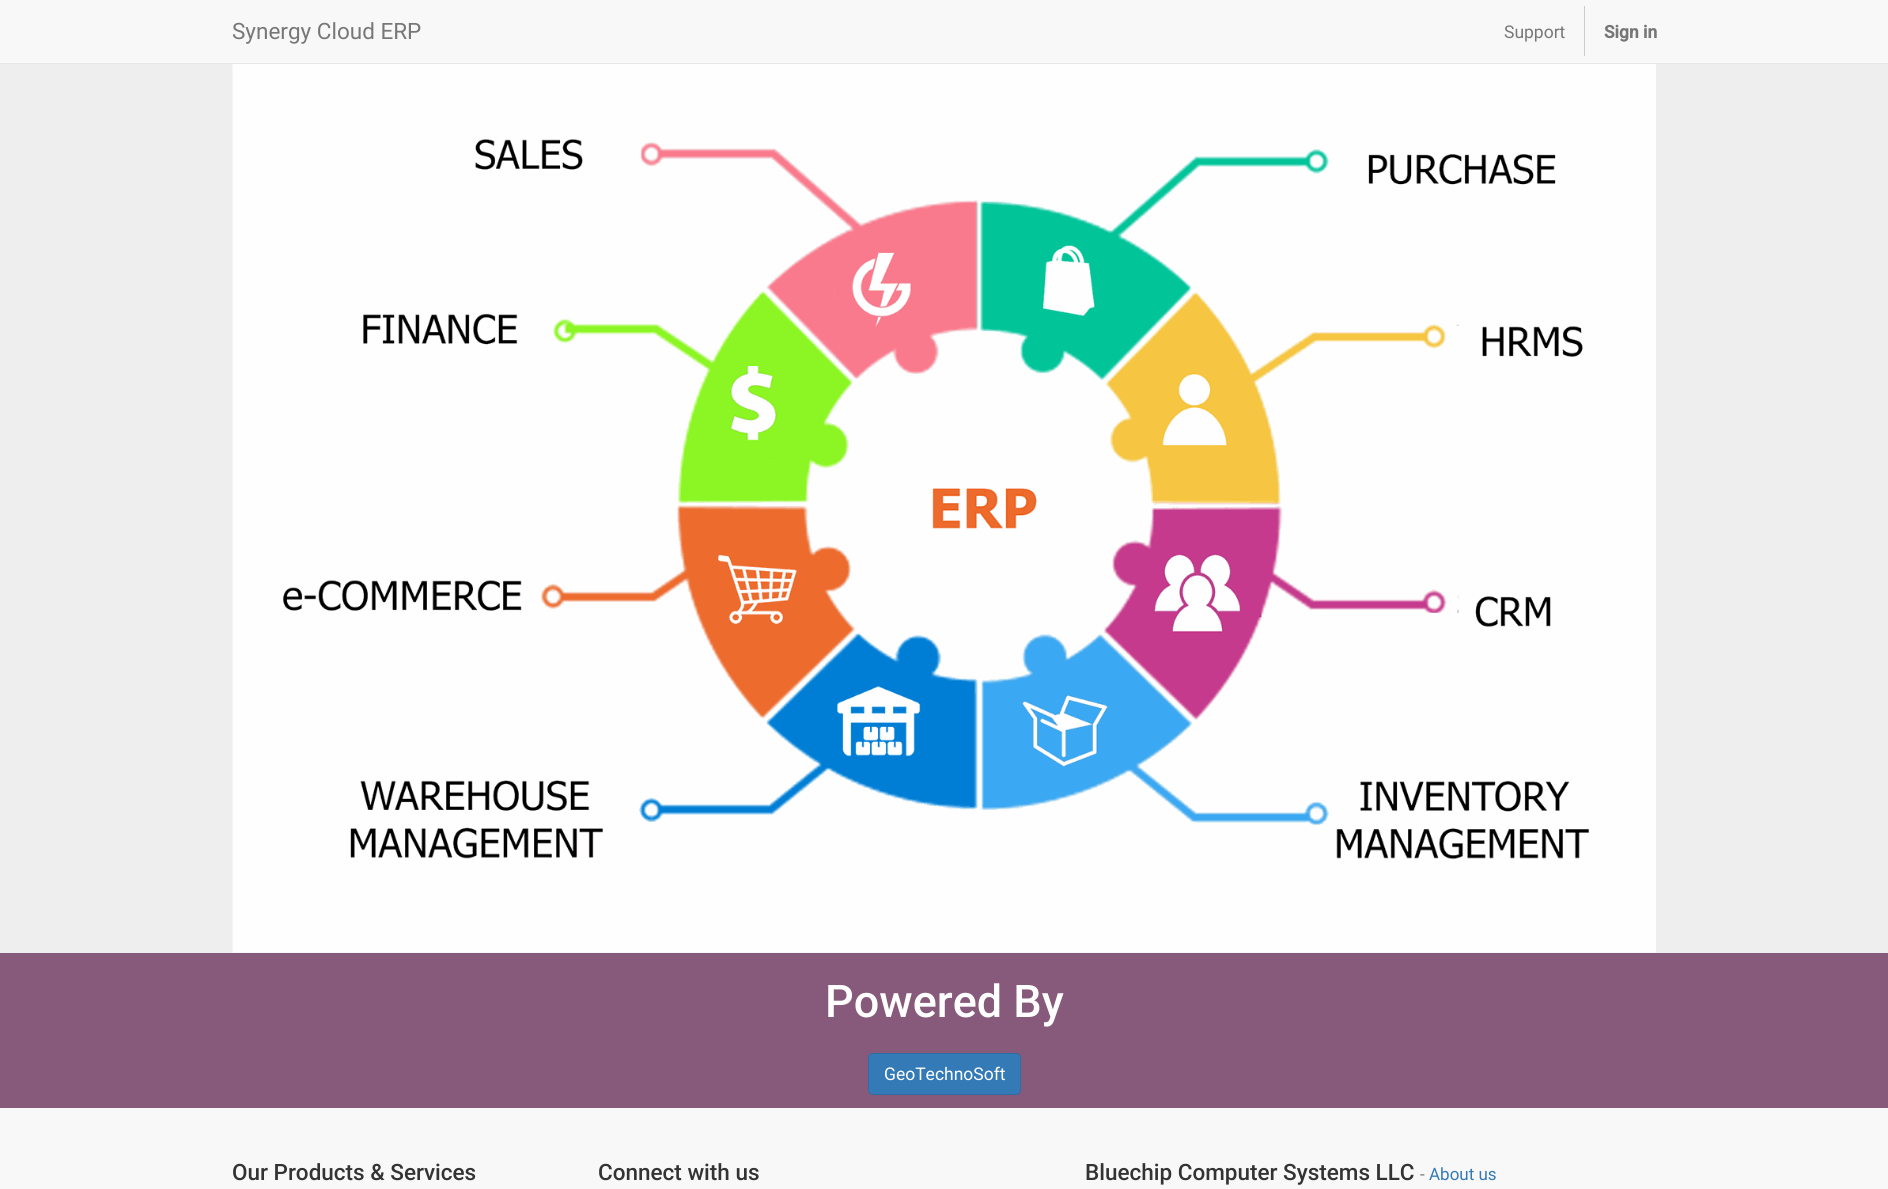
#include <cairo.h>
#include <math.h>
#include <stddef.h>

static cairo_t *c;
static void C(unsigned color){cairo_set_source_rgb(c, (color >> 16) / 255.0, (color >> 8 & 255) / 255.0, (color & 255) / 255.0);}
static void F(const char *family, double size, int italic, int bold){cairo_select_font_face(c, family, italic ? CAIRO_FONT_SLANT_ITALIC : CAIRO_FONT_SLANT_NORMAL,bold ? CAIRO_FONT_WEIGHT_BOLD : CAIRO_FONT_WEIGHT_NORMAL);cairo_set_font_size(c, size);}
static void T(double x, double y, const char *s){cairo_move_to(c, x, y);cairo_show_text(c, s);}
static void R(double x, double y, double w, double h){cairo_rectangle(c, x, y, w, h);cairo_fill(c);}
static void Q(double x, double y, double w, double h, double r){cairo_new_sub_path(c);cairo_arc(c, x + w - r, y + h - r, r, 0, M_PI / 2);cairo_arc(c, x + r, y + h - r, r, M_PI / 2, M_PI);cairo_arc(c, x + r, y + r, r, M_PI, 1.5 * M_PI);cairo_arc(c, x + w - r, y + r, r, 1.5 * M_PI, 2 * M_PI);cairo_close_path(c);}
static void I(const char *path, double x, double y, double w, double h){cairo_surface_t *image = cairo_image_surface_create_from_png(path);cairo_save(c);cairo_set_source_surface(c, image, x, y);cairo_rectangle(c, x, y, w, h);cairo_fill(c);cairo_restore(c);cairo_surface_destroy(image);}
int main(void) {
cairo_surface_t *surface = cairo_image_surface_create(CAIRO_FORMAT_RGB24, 1888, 1189);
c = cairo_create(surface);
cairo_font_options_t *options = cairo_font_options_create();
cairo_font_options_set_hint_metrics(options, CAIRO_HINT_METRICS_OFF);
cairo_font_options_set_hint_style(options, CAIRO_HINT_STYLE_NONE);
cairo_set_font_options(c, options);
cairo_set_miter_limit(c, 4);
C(0xeeeeee);
cairo_paint(c);
C(0xf8f8f8);
R(0,0,1888,63);
C(0xe7e7e7);
R(0,63,1888,1);
F("Roboto",22.5,0,0);
C(0x777777);
T(232,39,"Synergy Cloud ERP");
F("Roboto",17.5,0,0);
T(1504,38,"Support");
C(0xcccccc);
R(1584,6,1,50);
F("Roboto",17.5,0,1);
C(0x777777);
T(1604,38,"Sign in");
I("1.png",232,64,1424,889);
C(0x875a7b);
R(0,953,1888,155);
F("Roboto Medium",45,0,0);
C(0xffffff);
T(825,1017,"Powered By");
C(0x337ab7);
Q(868.5,1053.5,152,41,4.5);
cairo_fill_preserve(c);
C(0x2e6da4);
cairo_set_line_width(c,1);
cairo_stroke(c);
F("Roboto",17.5,0,0);
C(0xffffff);
T(884,1080,"GeoTechnoSoft");
C(0xf8f8f8);
R(0,1108,1888,81);
F("Roboto Medium",22.5,0,0);
C(0x333333);
T(232,1180,"Our Products & Services");
T(598,1180,"Connect with us");
T(1085,1180,"Bluechip Computer Systems LLC");
F("Roboto",17,0,0);
C(0x777777);
T(1420,1180,"-");
C(0x337ab7);
T(1429,1180,"About us");
cairo_surface_write_to_png(surface, "o.png");
cairo_font_options_destroy(options);
cairo_destroy(c);
cairo_surface_destroy(surface);
return 0;
}
